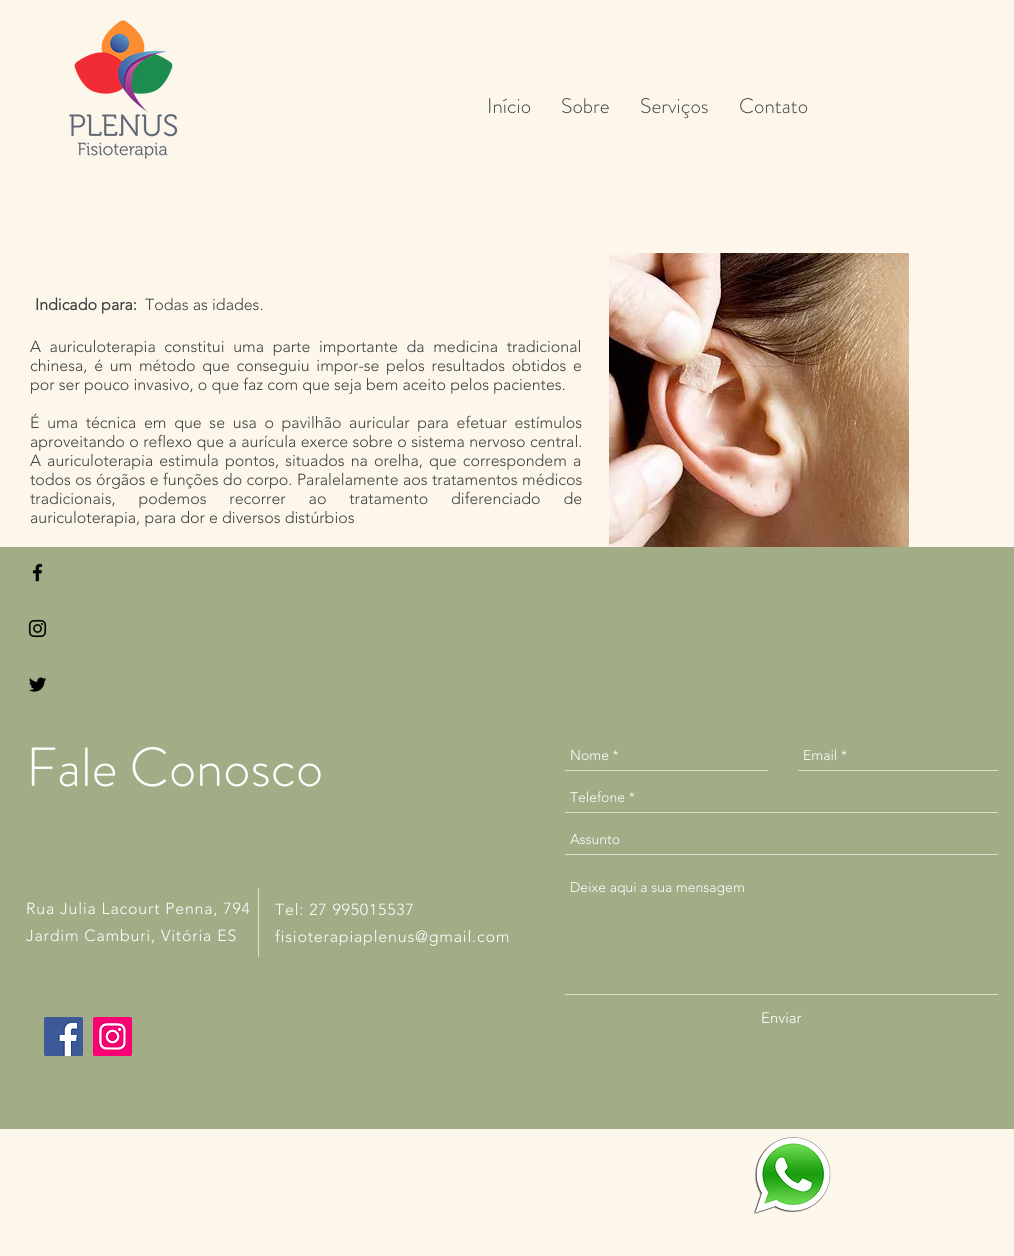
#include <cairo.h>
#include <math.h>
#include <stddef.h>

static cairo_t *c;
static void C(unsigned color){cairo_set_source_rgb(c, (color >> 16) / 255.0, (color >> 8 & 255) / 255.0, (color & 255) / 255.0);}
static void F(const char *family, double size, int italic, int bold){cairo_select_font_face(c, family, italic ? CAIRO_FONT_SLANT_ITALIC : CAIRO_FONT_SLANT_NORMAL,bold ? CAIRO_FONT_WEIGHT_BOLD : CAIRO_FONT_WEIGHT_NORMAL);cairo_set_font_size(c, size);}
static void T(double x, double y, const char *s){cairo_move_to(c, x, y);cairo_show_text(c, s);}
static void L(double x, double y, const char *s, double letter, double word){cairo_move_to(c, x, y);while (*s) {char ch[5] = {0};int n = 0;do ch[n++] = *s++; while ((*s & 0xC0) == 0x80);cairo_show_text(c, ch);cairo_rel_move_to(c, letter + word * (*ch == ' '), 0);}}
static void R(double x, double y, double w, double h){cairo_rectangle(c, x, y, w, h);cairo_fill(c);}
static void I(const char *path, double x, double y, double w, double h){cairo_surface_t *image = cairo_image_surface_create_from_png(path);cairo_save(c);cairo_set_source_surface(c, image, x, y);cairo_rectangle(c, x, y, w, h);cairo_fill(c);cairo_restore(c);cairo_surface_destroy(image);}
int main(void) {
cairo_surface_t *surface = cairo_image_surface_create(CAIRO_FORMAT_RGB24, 1014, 1256);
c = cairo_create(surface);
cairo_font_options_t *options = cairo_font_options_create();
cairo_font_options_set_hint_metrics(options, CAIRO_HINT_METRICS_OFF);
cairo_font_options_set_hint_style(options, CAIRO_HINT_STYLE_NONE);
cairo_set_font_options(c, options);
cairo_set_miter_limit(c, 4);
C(0xfdf6eb);
cairo_paint(c);
I("1.png",69,20,109,139);
F("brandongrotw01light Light",21,0,0);
C(0x404041);
T(487,113,"Início");
T(561,113,"Sobre");
T(640,113,"Serviços");
T(739,113,"Contato");
F("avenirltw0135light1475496",16,0,1);
T(35,310,"Indicado para:");
F("avenirltw0135light1475496 Light",16,0,0);
T(145,310,"Todas as idades.");
I("2.png",609,253,300,294);
L(30,352,"A auriculoterapia constitui uma parte importante da medicina tradicional",0,4.5);
L(30,371,"chinesa, é um método que conseguiu impor-se pelos resultados obtidos e",0,2.5);
T(30,390,"por ser pouco invasivo, o que faz com que seja bem aceito pelos pacientes.");
L(30,428,"É uma técnica em que se usa o pavilhão auricular para efetuar estímulos",0,3.5);
L(30,447,"aproveitando o reflexo que a aurícula exerce sobre o sistema nervoso central.",0,.25);
L(30,466,"A auriculoterapia estimula pontos, situados na orelha, que correspondem a",0,2);
L(30,485,"todos os órgãos e funções do corpo. Paralelamente aos tratamentos médicos",0,.25);
L(30,504,"tradicionais, podemos recorrer ao tratamento diferenciado de",0,18.75);
T(30,523,"auriculoterapia, para dor e diversos distúrbios");
C(0xa2ac87);
R(0,547,1014,582);
I("3.png",32,563,11,19);
I("4.png",28,619,19,19);
I("5.png",29,677,18,15);
F("brandongrotw01light Light",55,0,0);
C(0xffffff);
T(26,786,"Fale Conosco");
C(0xdadecf);
R(565,770,203,1);
F("avenirltw0135light1475496 Light",14,0,0);
C(0xffffff);
T(570,760,"Nome *");
C(0xdadecf);
R(798,770,200,1);
C(0xffffff);
T(803,760,"Email *");
C(0xdadecf);
R(565,812,433,1);
C(0xffffff);
T(570,802,"Telefone *");
C(0xdadecf);
R(565,854,433,1);
C(0xffffff);
T(570,844,"Assunto");
C(0xdadecf);
R(565,994,433,1);
C(0xffffff);
T(570,892,"Deixe aqui a sua mensagem");
F("avenirltw0135light1475496 Light",15,0,0);
T(761,1023,"Enviar");
F("avenirltw0135light1475496 Light",16,0,0);
L(26,914,"Rua Julia Lacourt Penna, 794",.8,0);
L(26,941,"Jardim Camburi, Vitória ES",.8,0);
C(0xdedecf);
R(258,888,1,69);
C(0xffffff);
L(275,915,"Tel: 27 995015537",.8,0);
L(275,942,"fisioterapiaplenus@gmail.com",.8,0);
I("6.png",44,1017,39,39);
I("7.png",93,1017,39,39);
I("8.png",753,1137,78,77);
cairo_surface_write_to_png(surface, "o.png");
cairo_font_options_destroy(options);
cairo_destroy(c);
cairo_surface_destroy(surface);
return 0;
}
